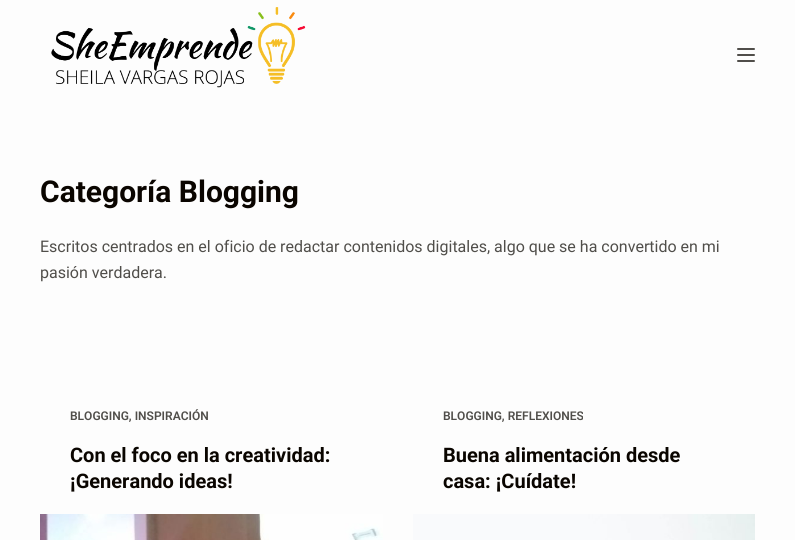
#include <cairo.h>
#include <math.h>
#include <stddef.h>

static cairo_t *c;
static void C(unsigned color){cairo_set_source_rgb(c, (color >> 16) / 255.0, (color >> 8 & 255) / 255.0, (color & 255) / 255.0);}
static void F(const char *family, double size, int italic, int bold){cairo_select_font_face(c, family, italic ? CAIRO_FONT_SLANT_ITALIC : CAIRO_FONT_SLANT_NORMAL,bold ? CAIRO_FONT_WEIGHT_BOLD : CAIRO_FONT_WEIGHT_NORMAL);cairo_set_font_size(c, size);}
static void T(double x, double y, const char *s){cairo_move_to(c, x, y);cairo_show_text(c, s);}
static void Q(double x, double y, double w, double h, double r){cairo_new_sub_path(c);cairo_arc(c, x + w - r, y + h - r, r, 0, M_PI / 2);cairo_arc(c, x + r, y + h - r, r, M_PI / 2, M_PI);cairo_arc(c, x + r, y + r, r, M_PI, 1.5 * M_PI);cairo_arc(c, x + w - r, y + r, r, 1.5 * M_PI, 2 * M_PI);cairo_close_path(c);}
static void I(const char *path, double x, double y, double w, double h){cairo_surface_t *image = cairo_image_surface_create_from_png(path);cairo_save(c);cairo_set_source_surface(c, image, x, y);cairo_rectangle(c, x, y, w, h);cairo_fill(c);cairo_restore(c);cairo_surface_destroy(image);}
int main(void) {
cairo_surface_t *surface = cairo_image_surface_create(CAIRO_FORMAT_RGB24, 795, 540);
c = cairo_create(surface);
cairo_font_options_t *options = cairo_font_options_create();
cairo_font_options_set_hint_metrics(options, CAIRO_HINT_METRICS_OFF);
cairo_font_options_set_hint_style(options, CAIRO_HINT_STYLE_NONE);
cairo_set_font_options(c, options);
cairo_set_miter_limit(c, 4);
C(0xfdfdfd);
cairo_paint(c);
I("1.png",51,7,255,81);
C(0x504e4a);
Q(737,48,18,2,1);
cairo_fill(c);
Q(737,54,18,2,1);
cairo_fill(c);
Q(737,60,18,2,1);
cairo_fill(c);
F("Roboto",30,0,1);
C(0x0a0500);
T(40,202,"Categoría Blogging");
F("Roboto",16,0,0);
C(0x504e4a);
T(40,252,"Escritos centrados en el oficio de redactar contenidos digitales, algo que se ha convertido en mi");
T(40,278,"pasión verdadera.");
F("Roboto SemiBold",12,0,0);
T(70,420,"BLOGGING, INSPIRACIÓN");
F("Roboto",20,0,1);
C(0x0a0500);
T(70,462,"Con el foco en la creatividad:");
T(70,488,"¡Generando ideas!");
I("2.png",40,514,343,26);
F("Roboto SemiBold",12,0,0);
C(0x504e4a);
T(443,420,"BLOGGING, REFLEXIONES");
F("Roboto",20,0,1);
C(0x0a0500);
T(443,462,"Buena alimentación desde");
T(443,488,"casa: ¡Cuídate!");
I("3.png",413,514,342,26);
cairo_surface_write_to_png(surface, "o.png");
cairo_font_options_destroy(options);
cairo_destroy(c);
cairo_surface_destroy(surface);
return 0;
}
